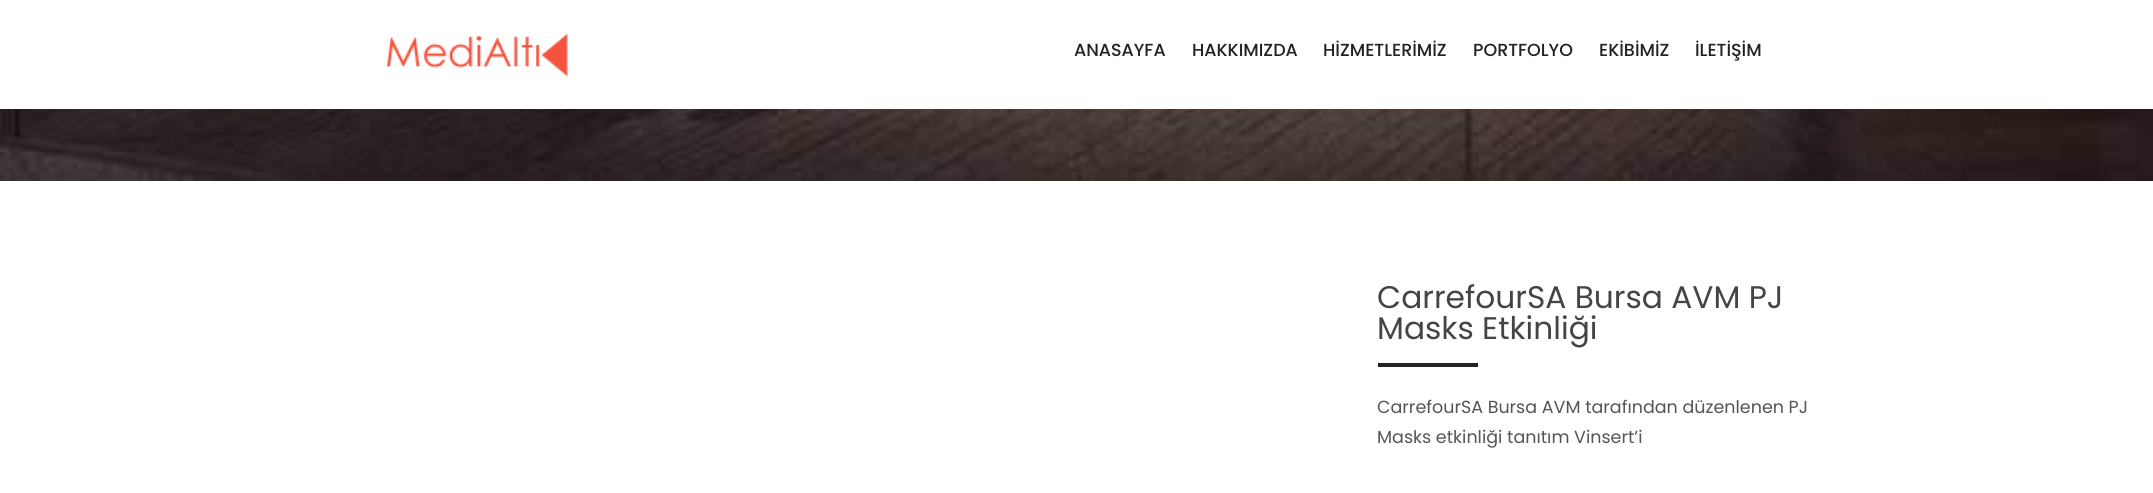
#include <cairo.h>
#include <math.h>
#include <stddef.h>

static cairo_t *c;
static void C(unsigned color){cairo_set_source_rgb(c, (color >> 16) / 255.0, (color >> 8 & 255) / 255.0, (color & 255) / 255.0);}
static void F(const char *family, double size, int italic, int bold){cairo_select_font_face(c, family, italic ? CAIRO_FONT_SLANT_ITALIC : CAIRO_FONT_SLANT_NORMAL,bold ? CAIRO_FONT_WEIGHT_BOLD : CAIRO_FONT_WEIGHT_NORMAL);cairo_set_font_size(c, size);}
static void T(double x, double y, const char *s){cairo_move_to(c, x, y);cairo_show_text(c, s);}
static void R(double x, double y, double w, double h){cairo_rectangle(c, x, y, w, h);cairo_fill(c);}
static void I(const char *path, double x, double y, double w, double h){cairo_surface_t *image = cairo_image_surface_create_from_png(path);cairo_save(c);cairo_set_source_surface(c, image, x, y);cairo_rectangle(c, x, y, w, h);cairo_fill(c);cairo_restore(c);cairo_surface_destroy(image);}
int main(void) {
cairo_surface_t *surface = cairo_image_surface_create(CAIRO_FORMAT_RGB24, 2153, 493);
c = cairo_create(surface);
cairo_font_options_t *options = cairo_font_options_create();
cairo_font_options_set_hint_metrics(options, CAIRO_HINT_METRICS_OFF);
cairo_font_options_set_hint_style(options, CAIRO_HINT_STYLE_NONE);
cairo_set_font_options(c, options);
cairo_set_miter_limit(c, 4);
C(0xffffff);
cairo_paint(c);
I("1.png",386,33,182,44);
F("Poppins Medium",17.5,0,0);
C(0x222222);
T(1074,56,"ANASAYFA");
T(1192,56,"HAKKIMIZDA");
T(1323,56,"HİZMETLERİMİZ");
T(1473,56,"PORTFOLYO");
T(1599,56,"EKİBİMİZ");
T(1695,56,"İLETİŞİM");
I("2.png",0,109,2153,72);
F("Poppins",31.25,0,0);
C(0x444444);
T(1377,308,"CarrefourSA Bursa AVM PJ");
T(1377,339,"Masks Etkinliği");
C(0x222222);
R(1378,363,100,4);
F("Poppins",17.5,0,0);
C(0x555555);
T(1377,413,"CarrefourSA Bursa AVM tarafından düzenlenen PJ");
T(1377,443,"Masks etkinliği tanıtım Vinsert’i");
cairo_surface_write_to_png(surface, "o.png");
cairo_font_options_destroy(options);
cairo_destroy(c);
cairo_surface_destroy(surface);
return 0;
}
